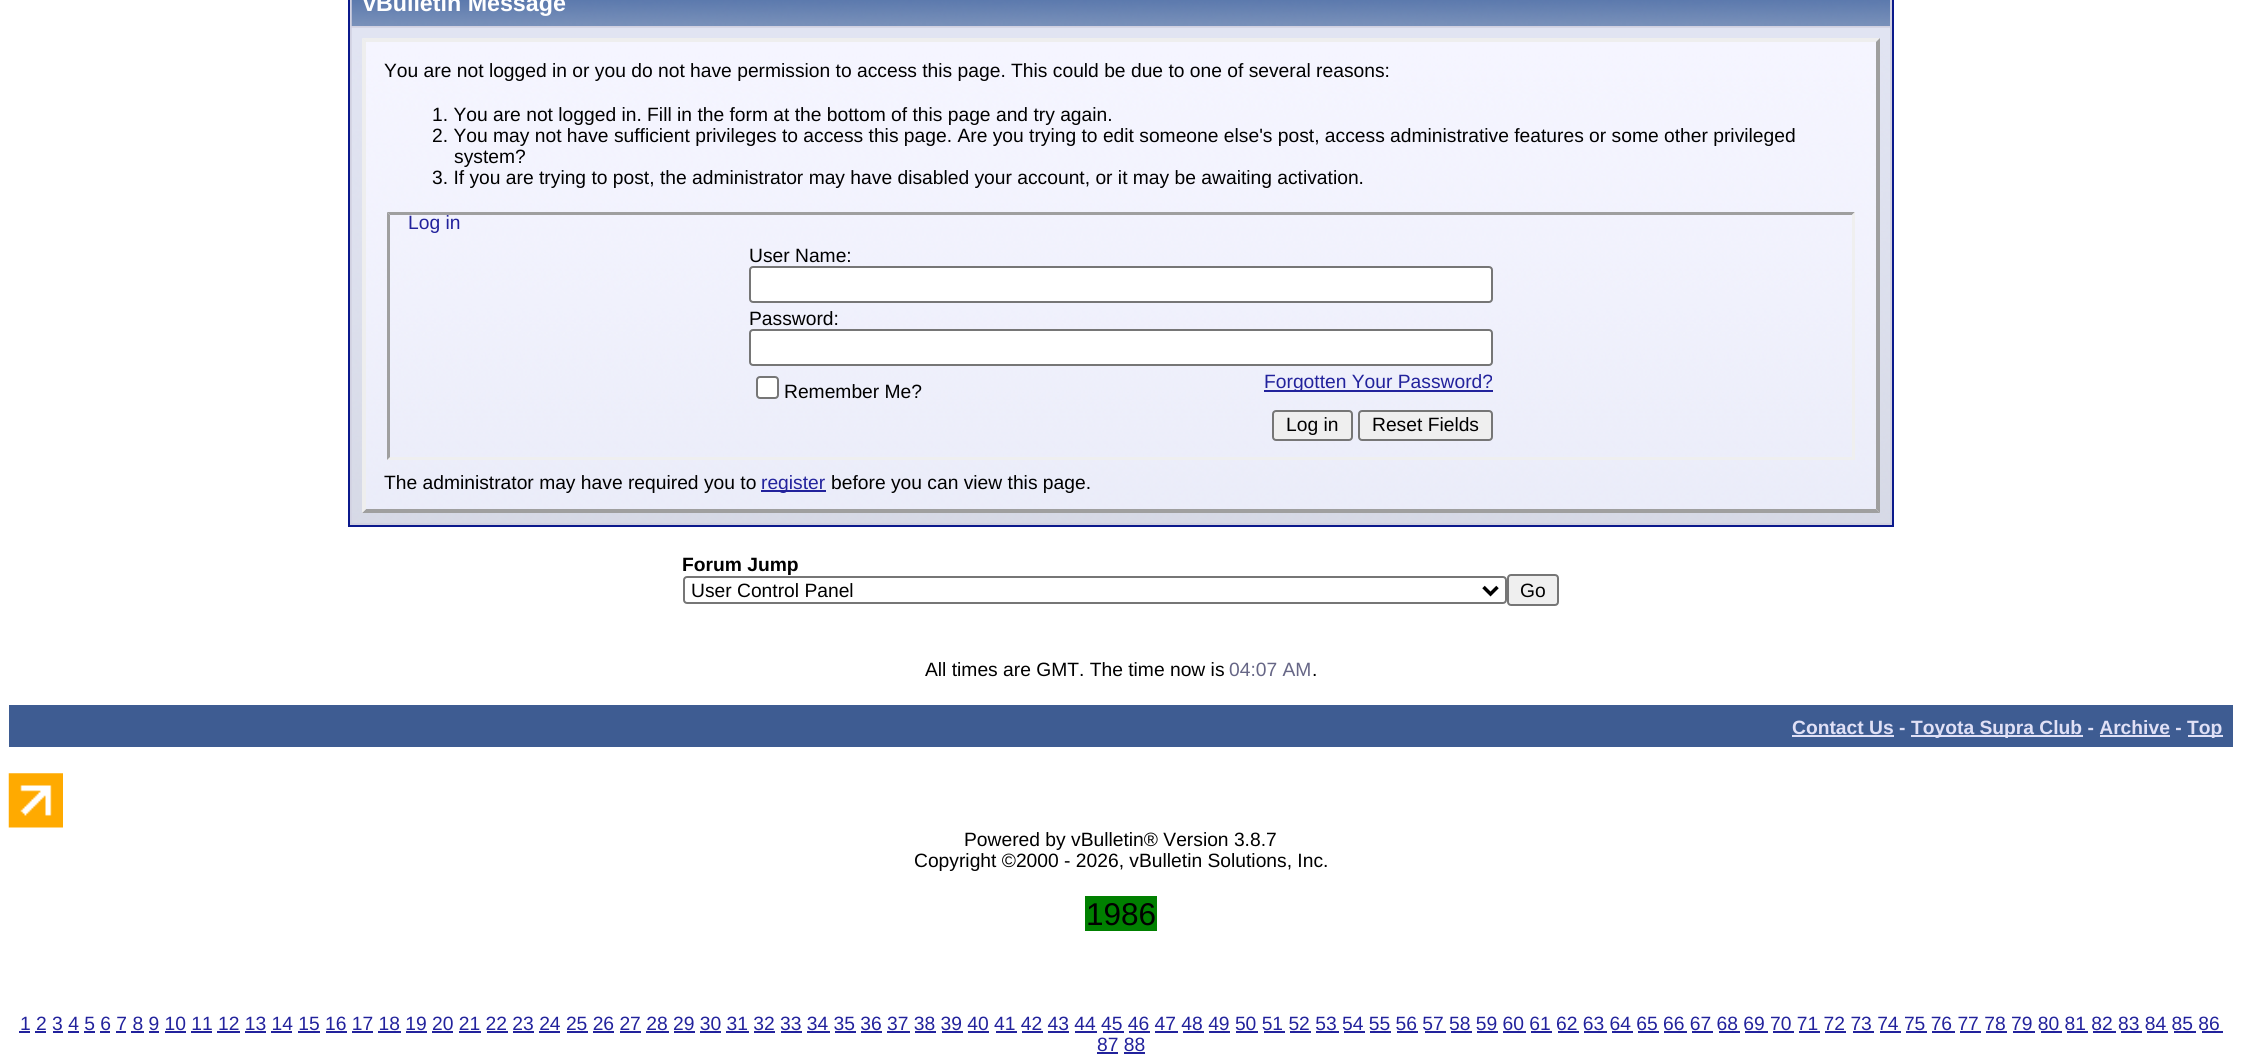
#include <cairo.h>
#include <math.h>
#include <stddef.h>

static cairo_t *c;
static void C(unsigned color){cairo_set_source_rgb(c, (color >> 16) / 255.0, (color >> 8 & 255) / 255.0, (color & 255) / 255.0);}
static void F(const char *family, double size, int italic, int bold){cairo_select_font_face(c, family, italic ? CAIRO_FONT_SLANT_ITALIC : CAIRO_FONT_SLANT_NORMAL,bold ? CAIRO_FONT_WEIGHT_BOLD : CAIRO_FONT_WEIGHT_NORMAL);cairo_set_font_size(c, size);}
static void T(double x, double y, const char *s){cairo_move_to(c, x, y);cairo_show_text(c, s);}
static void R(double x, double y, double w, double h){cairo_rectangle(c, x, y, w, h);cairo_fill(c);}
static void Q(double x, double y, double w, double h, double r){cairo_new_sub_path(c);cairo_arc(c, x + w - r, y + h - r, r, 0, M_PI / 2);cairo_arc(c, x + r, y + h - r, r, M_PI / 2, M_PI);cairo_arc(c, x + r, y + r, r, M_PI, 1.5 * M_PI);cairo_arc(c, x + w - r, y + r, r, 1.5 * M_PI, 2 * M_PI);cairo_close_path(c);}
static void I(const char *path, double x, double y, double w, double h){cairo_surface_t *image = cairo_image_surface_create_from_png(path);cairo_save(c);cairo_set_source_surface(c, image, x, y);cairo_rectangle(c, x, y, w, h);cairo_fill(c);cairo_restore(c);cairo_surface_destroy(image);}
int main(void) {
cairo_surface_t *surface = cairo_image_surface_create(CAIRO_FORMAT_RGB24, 2241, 1062);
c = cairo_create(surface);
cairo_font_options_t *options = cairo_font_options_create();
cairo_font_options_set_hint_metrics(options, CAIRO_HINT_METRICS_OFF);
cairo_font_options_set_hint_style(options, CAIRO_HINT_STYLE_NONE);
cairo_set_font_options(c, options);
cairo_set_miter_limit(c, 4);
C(0xffffff);
cairo_paint(c);
C(0xd1d1e1);
cairo_rectangle(c,349,-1,1544,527);
cairo_fill_preserve(c);
C(0x0b198c);
cairo_stroke(c);
I("1.png",351,0,1539,26);
F("Liberation Sans",23.25,0,1);
C(0xffffff);
T(363,11,"vBulletin Message");
I("2.png",351,27,1539,496);
I("3.png",363,42,1516,470);
C(0xeeeeee);
cairo_new_path(c);
cairo_move_to(c,362,38);
cairo_line_to(c,1880,38);
cairo_line_to(c,1876,42);
cairo_line_to(c,366,42);
cairo_close_path(c);
cairo_fill(c);
C(0x9f9f9f);
cairo_new_path(c);
cairo_move_to(c,1880,38);
cairo_line_to(c,1880,513);
cairo_line_to(c,1876,509);
cairo_line_to(c,1876,42);
cairo_close_path(c);
cairo_fill(c);
cairo_new_path(c);
cairo_move_to(c,1880,513);
cairo_line_to(c,362,513);
cairo_line_to(c,366,509);
cairo_line_to(c,1876,509);
cairo_close_path(c);
cairo_fill(c);
C(0xeeeeee);
cairo_new_path(c);
cairo_move_to(c,362,513);
cairo_line_to(c,362,38);
cairo_line_to(c,366,42);
cairo_line_to(c,366,509);
cairo_close_path(c);
cairo_fill(c);
F("Liberation Sans",19.25,0,0);
C(0x000000);
T(384,77,"You are not logged in or you do not have permission to access this page. This could be due to one of several reasons:");
T(432,121,"1. You are not logged in. Fill in the form at the bottom of this page and try again.");
T(432,142,"2. You may not have sufficient privileges to access this page. Are you trying to edit someone else's post, access administrative features or some other privileged");
T(454,163,"system?");
T(432,184,"3. If you are trying to post, the administrator may have disabled your account, or it may be awaiting activation.");
C(0x9f9f9f);
cairo_new_path(c);
cairo_move_to(c,387,212);
cairo_line_to(c,1855,212);
cairo_line_to(c,1852,215);
cairo_line_to(c,390,215);
cairo_close_path(c);
cairo_fill(c);
C(0xefefef);
cairo_new_path(c);
cairo_move_to(c,1855,212);
cairo_line_to(c,1855,460);
cairo_line_to(c,1852,457);
cairo_line_to(c,1852,215);
cairo_close_path(c);
cairo_fill(c);
cairo_new_path(c);
cairo_move_to(c,1855,460);
cairo_line_to(c,387,460);
cairo_line_to(c,390,457);
cairo_line_to(c,1852,457);
cairo_close_path(c);
cairo_fill(c);
C(0x9f9f9f);
cairo_new_path(c);
cairo_move_to(c,387,460);
cairo_line_to(c,387,212);
cairo_line_to(c,390,215);
cairo_line_to(c,390,457);
cairo_close_path(c);
cairo_fill(c);
C(0x22229c);
T(408,229,"Log in");
C(0x000000);
T(749,262,"User Name:");
C(0xffffff);
Q(750,267,742,35,3);
cairo_fill_preserve(c);
C(0x767676);
cairo_stroke(c);
C(0x000000);
T(749,325,"Password:");
C(0xffffff);
Q(750,330,742,35,3);
cairo_fill_preserve(c);
C(0x767676);
cairo_stroke(c);
C(0xffffff);
Q(757,377,21,21,3);
cairo_fill_preserve(c);
C(0x767676);
cairo_stroke(c);
C(0x000000);
T(784,398,"Remember Me?");
C(0x22229c);
R(1264,390,229,2);
T(1264,388,"Forgotten Your Password?");
C(0xefefef);
Q(1273,411,79,29,3);
cairo_fill_preserve(c);
C(0x767676);
cairo_stroke(c);
C(0x000000);
T(1286,431,"Log in");
C(0xefefef);
Q(1359,411,133,29,3);
cairo_fill_preserve(c);
C(0x767676);
cairo_stroke(c);
C(0x000000);
T(1372,431,"Reset Fields");
T(384,489,"The administrator may have required you to");
C(0x22229c);
R(761,490,65,2);
T(761,489,"register");
C(0x000000);
T(831,489,"before you can view this page.");
F("Liberation Sans",19.25,0,1);
T(682,571,"Forum Jump");
Q(684,577,822,26,3);
C(0x767676);
cairo_stroke(c);
cairo_new_path(c);
cairo_move_to(c,1483.5,587);
cairo_line_to(c,1490.5,594);
cairo_line_to(c,1497.5,587);
C(0x000000);
cairo_set_line_width(c,3.5);
cairo_stroke(c);
F("Liberation Sans",19.25,0,0);
T(691,597,"User Control Panel");
C(0xefefef);
Q(1508,575,50,30,3);
cairo_fill_preserve(c);
C(0x767676);
cairo_set_line_width(c,2);
cairo_stroke(c);
C(0x000000);
T(1520,597,"Go");
T(925,676,"All times are GMT. The time now is");
C(0x666686);
T(1229,676,"04:07 AM");
C(0x000000);
T(1312,676,".");
C(0x3e5c92);
R(9,705,2224,42);
F("Liberation Sans",19.25,0,1);
C(0xe0e0f6);
T(1792,734,"Contact Us -");
R(1792,735,102,2);
R(1911,735,172,2);
T(1911,734,"Toyota Supra Club - Archive -");
R(2100,735,70,2);
R(2188,735,35,2);
T(2187,734,"Top");
I("4.png",8,773,55,55);
F("Liberation Sans",19.25,0,0);
C(0x000000);
T(964,846,"Powered by vBulletin® Version 3.8.7");
T(914,867,"Copyright ©2000 - 2026, vBulletin Solutions, Inc.");
C(0x008000);
R(1085,896,72,35);
F("Liberation Sans",31.5,0,0);
C(0x000000);
T(1086,925,"1986");
F("Liberation Sans",19.25,0,0);
C(0x22229c);
T(20,1030,"1 2 3 4 5 6 7 8 9 10 11 12 13 14 15 16 17 18 19 20 21 22 23 24 25 26 27 28 29 30 31 32 33 34 35 36 37 38 39 40 41 42 43 44 45 46 47 48 49 50 51 52 53 54 55 56 57 58 59 60 61 62 63 64 65 66 67 68 69 70 71 72 73 74 75 76 77 78 79 80 81 82 83 84 85 86");
R(19,1031,11,2);
R(35,1031,11,2);
R(53,1031,10,2);
R(68,1031,11,2);
R(84,1031,11,2);
R(100,1031,10,2);
R(116,1031,10,2);
R(131,1031,13,2);
R(149,1031,10,2);
R(165,1031,21,2);
R(191,1031,21,2);
R(217,1031,23,2);
R(245,1031,21,2);
R(271,1031,21,2);
R(298,1031,22,2);
R(326,1031,21,2);
R(352,1031,21,2);
R(378,1031,23,2);
R(406,1031,21,2);
R(432,1031,21,2);
R(459,1031,22,2);
R(487,1031,21,2);
R(513,1031,21,2);
R(539,1031,21,2);
R(567,1031,21,2);
R(593,1031,21,2);
R(620,1031,21,2);
R(646,1031,23,2);
R(674,1031,21,2);
R(700,1031,21,2);
R(726,1031,23,2);
R(754,1031,21,2);
R(781,1031,21,2);
R(807,1031,23,2);
R(835,1031,21,2);
R(861,1031,21,2);
R(887,1031,23,2);
R(915,1031,21,2);
R(942,1031,21,2);
R(968,1031,21,2);
R(996,1031,21,2);
R(1022,1031,21,2);
R(1048,1031,21,2);
R(1075,1031,22,2);
R(1103,1031,21,2);
R(1129,1031,21,2);
R(1155,1031,23,2);
R(1183,1031,21,2);
R(1209,1031,21,2);
R(1236,1031,22,2);
R(1264,1031,21,2);
R(1290,1031,21,2);
R(1316,1031,23,2);
R(1344,1031,21,2);
R(1370,1031,21,2);
R(1397,1031,21,2);
R(1425,1031,21,2);
R(1451,1031,21,2);
R(1477,1031,21,2);
R(1503,1031,23,2);
R(1531,1031,21,2);
R(1558,1031,21,2);
R(1584,1031,23,2);
R(1612,1031,21,2);
R(1638,1031,21,2);
R(1664,1031,23,2);
R(1692,1031,21,2);
R(1719,1031,21,2);
R(1745,1031,23,2);
R(1773,1031,21,2);
R(1799,1031,21,2);
R(1825,1031,21,2);
R(1853,1031,21,2);
R(1880,1031,21,2);
R(1906,1031,21,2);
R(1932,1031,23,2);
R(1960,1031,21,2);
R(1986,1031,21,2);
R(2013,1031,22,2);
R(2041,1031,21,2);
R(2067,1031,21,2);
R(2093,1031,23,2);
R(2121,1031,21,2);
R(2147,1031,21,2);
R(2174,1031,22,2);
R(2202,1031,21,2);
T(1097,1051,"87 88");
R(1097,1052,21,2);
R(1124,1052,21,2);
cairo_surface_write_to_png(surface, "o.png");
cairo_font_options_destroy(options);
cairo_destroy(c);
cairo_surface_destroy(surface);
return 0;
}
